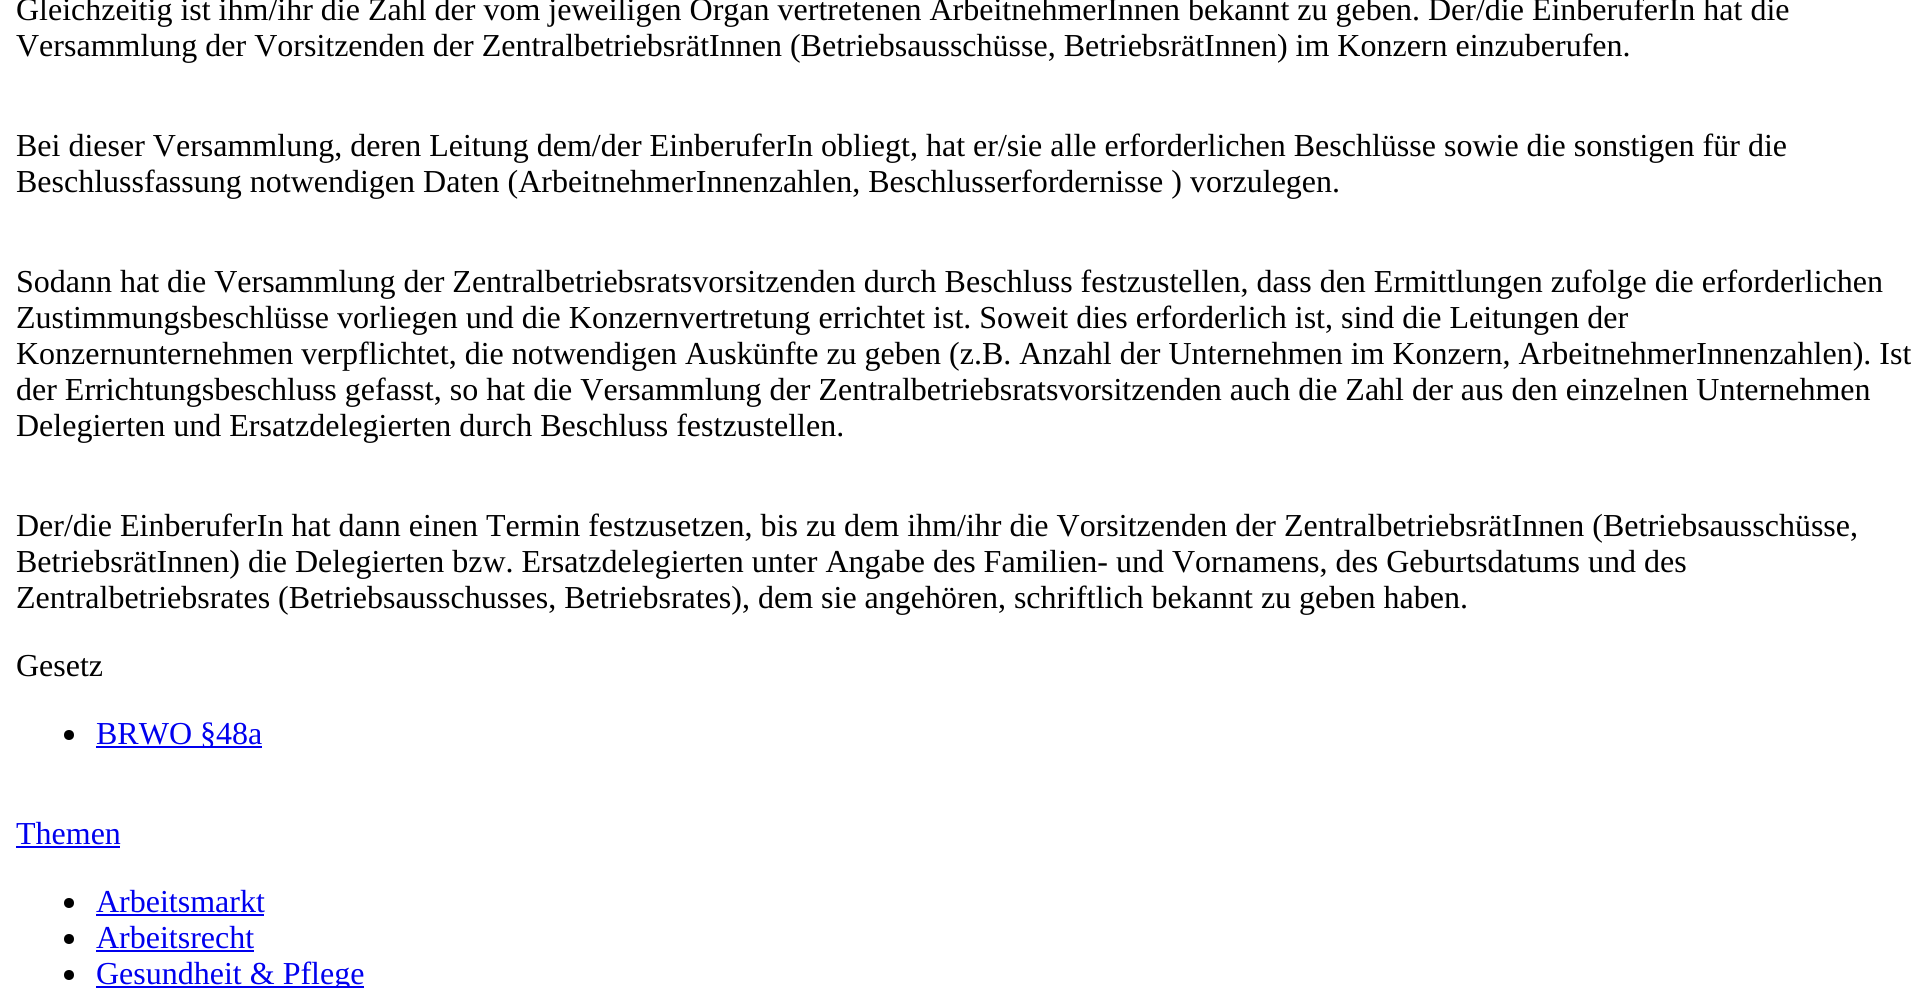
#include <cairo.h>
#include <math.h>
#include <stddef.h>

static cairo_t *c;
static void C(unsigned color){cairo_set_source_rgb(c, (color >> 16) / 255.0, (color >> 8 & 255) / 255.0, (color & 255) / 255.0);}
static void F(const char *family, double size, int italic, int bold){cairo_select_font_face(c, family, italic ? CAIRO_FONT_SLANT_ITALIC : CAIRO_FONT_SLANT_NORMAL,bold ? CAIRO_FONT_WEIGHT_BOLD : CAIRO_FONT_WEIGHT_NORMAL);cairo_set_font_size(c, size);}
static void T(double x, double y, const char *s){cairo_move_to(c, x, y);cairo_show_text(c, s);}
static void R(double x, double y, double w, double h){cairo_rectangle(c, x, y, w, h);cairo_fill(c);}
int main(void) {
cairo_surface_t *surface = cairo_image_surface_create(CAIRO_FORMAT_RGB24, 1927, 988);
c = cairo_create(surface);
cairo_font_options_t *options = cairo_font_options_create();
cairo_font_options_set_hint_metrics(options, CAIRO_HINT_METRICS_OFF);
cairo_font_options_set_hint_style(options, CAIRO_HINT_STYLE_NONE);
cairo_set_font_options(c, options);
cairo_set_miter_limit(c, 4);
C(0xffffff);
cairo_paint(c);
F("Liberation Serif",32,0,0);
C(0x000000);
T(16,20,"Gleichzeitig ist ihm/ihr die Zahl der vom jeweiligen Organ vertretenen ArbeitnehmerInnen bekannt zu geben. Der/die EinberuferIn hat die");
T(16,56,"Versammlung der Vorsitzenden der ZentralbetriebsrätInnen (Betriebsausschüsse, BetriebsrätInnen) im Konzern einzuberufen.");
T(16,156,"Bei dieser Versammlung, deren Leitung dem/der EinberuferIn obliegt, hat er/sie alle erforderlichen Beschlüsse sowie die sonstigen für die");
T(16,192,"Beschlussfassung notwendigen Daten (ArbeitnehmerInnenzahlen, Beschlusserfordernisse ) vorzulegen.");
T(16,292,"Sodann hat die Versammlung der Zentralbetriebsratsvorsitzenden durch Beschluss festzustellen, dass den Ermittlungen zufolge die erforderlichen");
T(16,328,"Zustimmungsbeschlüsse vorliegen und die Konzernvertretung errichtet ist. Soweit dies erforderlich ist, sind die Leitungen der");
T(16,364,"Konzernunternehmen verpflichtet, die notwendigen Auskünfte zu geben (z.B. Anzahl der Unternehmen im Konzern, ArbeitnehmerInnenzahlen). Ist");
T(16,400,"der Errichtungsbeschluss gefasst, so hat die Versammlung der Zentralbetriebsratsvorsitzenden auch die Zahl der aus den einzelnen Unternehmen");
T(16,436,"Delegierten und Ersatzdelegierten durch Beschluss festzustellen.");
T(16,536,"Der/die EinberuferIn hat dann einen Termin festzusetzen, bis zu dem ihm/ihr die Vorsitzenden der ZentralbetriebsrätInnen (Betriebsausschüsse,");
T(16,572,"BetriebsrätInnen) die Delegierten bzw. Ersatzdelegierten unter Angabe des Familien- und Vornamens, des Geburtsdatums und des");
T(16,608,"Zentralbetriebsrates (Betriebsausschusses, Betriebsrates), dem sie angehören, schriftlich bekannt zu geben haben.");
T(16,676,"Gesetz");
cairo_new_path(c);
cairo_arc(c,69,735,5,0,2 * M_PI);
cairo_fill(c);
C(0x0000ee);
R(96,746,166,2);
T(96,744,"BRWO §48a");
T(16,844,"Themen");
R(16,846,104,2);
C(0x000000);
cairo_new_path(c);
cairo_arc(c,69,903,5,0,2 * M_PI);
cairo_fill(c);
C(0x0000ee);
T(96,912,"Arbeitsmarkt");
R(96,914,168,2);
C(0x000000);
cairo_new_path(c);
cairo_arc(c,69,939,5,0,2 * M_PI);
cairo_fill(c);
C(0x0000ee);
T(96,948,"Arbeitsrecht");
R(96,950,158,2);
C(0x000000);
cairo_new_path(c);
cairo_arc(c,69,975,5,0,2 * M_PI);
cairo_fill(c);
C(0x0000ee);
R(96,986,268,2);
T(96,984,"Gesundheit & Pflege");
cairo_surface_write_to_png(surface, "o.png");
cairo_font_options_destroy(options);
cairo_destroy(c);
cairo_surface_destroy(surface);
return 0;
}
